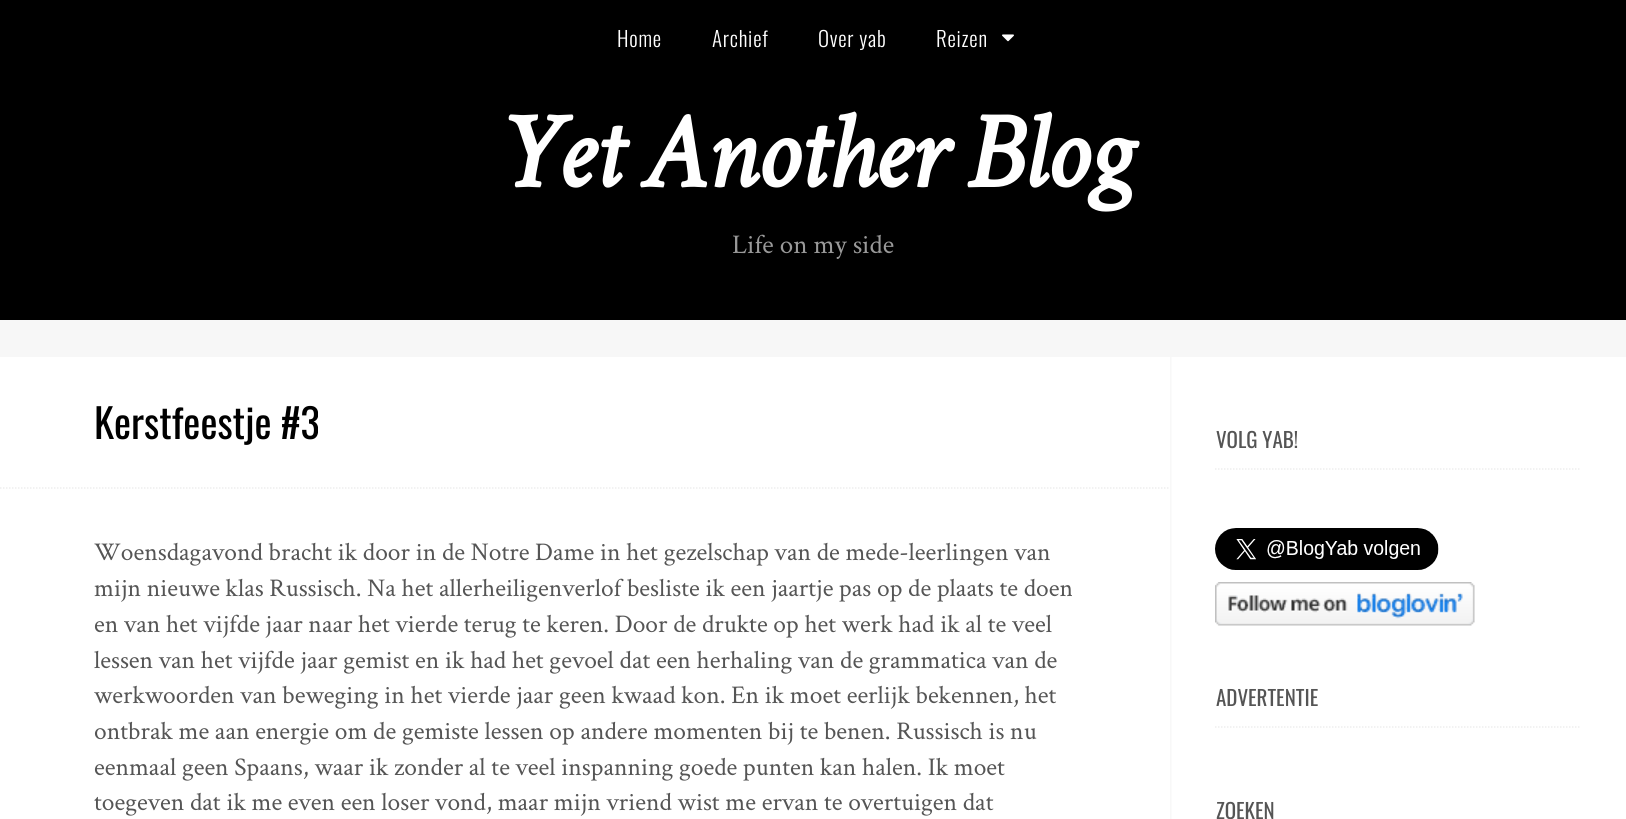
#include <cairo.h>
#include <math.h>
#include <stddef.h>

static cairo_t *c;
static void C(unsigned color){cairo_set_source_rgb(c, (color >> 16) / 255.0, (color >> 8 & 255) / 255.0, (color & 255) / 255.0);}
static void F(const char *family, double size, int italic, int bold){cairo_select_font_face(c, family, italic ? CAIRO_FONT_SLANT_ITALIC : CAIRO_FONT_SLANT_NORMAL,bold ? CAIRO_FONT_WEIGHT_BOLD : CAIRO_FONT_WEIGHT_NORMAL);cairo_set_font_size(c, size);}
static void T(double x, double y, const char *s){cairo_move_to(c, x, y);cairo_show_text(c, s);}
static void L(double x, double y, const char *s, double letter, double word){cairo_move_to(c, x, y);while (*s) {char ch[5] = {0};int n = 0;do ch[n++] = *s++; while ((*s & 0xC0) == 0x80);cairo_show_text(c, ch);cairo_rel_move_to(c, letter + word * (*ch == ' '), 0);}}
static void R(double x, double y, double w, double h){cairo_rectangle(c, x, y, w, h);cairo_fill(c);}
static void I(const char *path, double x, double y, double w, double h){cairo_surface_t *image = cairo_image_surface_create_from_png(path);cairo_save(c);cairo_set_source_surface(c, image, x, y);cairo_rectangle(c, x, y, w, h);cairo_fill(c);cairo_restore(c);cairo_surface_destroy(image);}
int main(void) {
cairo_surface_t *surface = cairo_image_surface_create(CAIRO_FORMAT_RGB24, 1626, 819);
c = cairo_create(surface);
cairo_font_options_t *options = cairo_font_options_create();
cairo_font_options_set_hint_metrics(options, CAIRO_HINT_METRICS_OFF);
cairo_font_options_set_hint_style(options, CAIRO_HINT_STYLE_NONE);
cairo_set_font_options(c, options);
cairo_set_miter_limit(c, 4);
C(0xf7f7f7);
cairo_paint(c);
C(0x000000);
R(0,0,1626,320);
F("Oswald Light",21,0,0);
C(0xffffff);
L(617,47,"Home",.75,0);
L(712,47,"Archief",.75,0);
L(818,47,"Over yab",.75,0);
L(936,47,"Reizen",.75,0);
I("1.png",1002,34,12,8);
F("Crimson Text",108,1,1);
L(496,187,"Yet Another Blog",-2.2,0);
F("Crimson Text",27,0,0);
C(0x999999);
T(732,253,"Life on my side");
C(0xffffff);
R(0,357,1626,462);
I("2.png",1170,357,2,462);
cairo_new_path(c);
cairo_move_to(c,0,488);
cairo_line_to(c,1170,488);
C(0xeeeeee);
cairo_set_line_width(c,1.5);
cairo_set_dash(c,(double[]){1.5,1.5},2,0);
cairo_stroke(c);
F("Oswald",40.5,0,0);
C(0x000000);
T(94,439,"Kerstfeestje #3");
F("Crimson Text",25.5,0,0);
C(0x555555);
T(94,560,"Woensdagavond bracht ik door in de Notre Dame in het gezelschap van de mede-leerlingen van");
T(94,596,"mijn nieuwe klas Russisch. Na het allerheiligenverlof besliste ik een jaartje pas op de plaats te doen");
T(94,632,"en van het vijfde jaar naar het vierde terug te keren. Door de drukte op het werk had ik al te veel");
T(94,668,"lessen van het vijfde jaar gemist en ik had het gevoel dat een herhaling van de grammatica van de");
T(94,703,"werkwoorden van beweging in het vierde jaar geen kwaad kon. En ik moet eerlijk bekennen, het");
T(94,739,"ontbrak me aan energie om de gemiste lessen op andere momenten bij te benen. Russisch is nu");
T(94,775,"eenmaal geen Spaans, waar ik zonder al te veel inspanning goede punten kan halen. Ik moet");
T(94,810,"toegeven dat ik me even een loser vond, maar mijn vriend wist me ervan te overtuigen dat");
cairo_new_path(c);
cairo_move_to(c,1215,469);
cairo_line_to(c,1581,469);
C(0xeeeeee);
cairo_stroke(c);
F("Oswald",21,0,0);
C(0x555555);
T(1216,448,"VOLG YAB!");
I("3.png",1215,528,224,42);
I("4.png",1215,582,260,44);
cairo_new_path(c);
cairo_move_to(c,1215,727);
cairo_line_to(c,1581,727);
C(0xeeeeee);
cairo_stroke(c);
C(0x555555);
T(1216,706,"ADVERTENTIE");
T(1216,819,"ZOEKEN");
cairo_surface_write_to_png(surface, "o.png");
cairo_font_options_destroy(options);
cairo_destroy(c);
cairo_surface_destroy(surface);
return 0;
}
